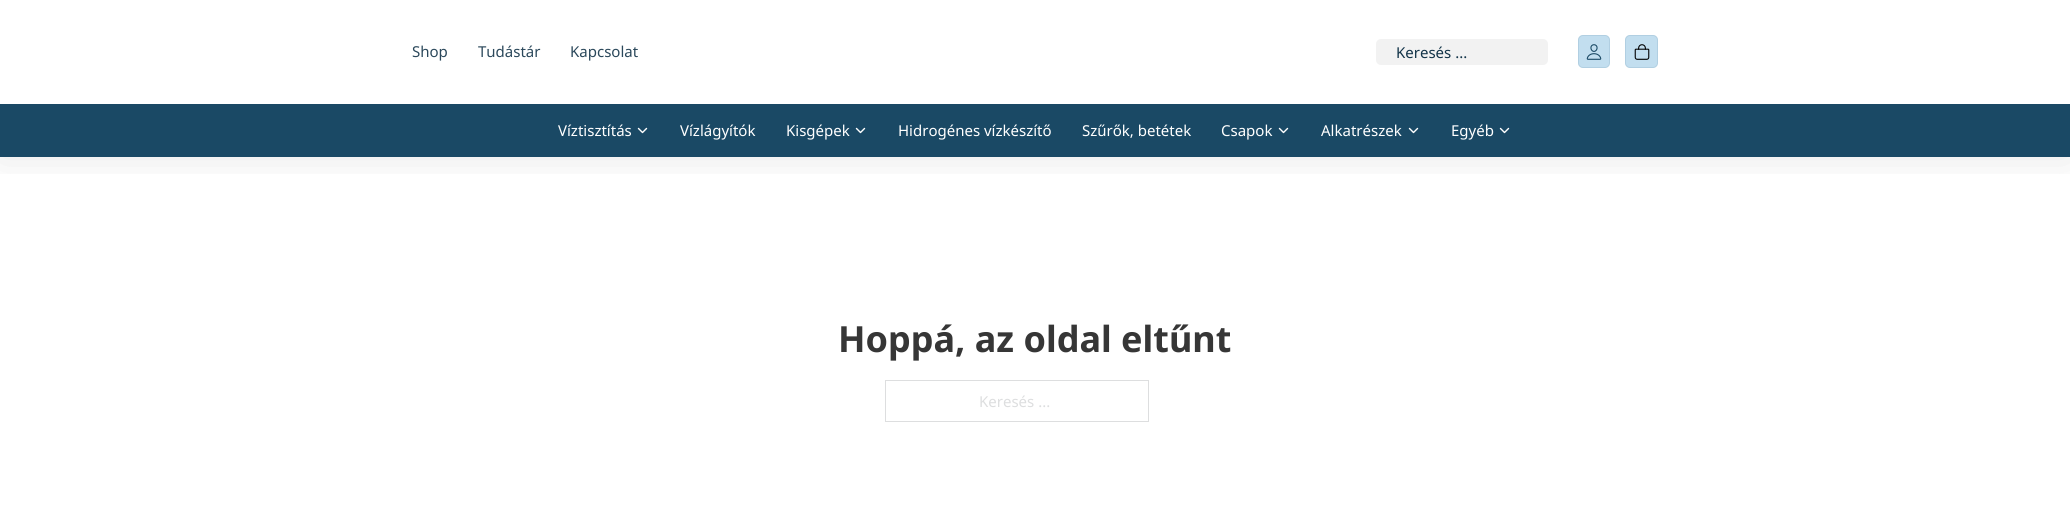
#include <cairo.h>
#include <math.h>
#include <stddef.h>

static cairo_t *c;
static void C(unsigned color){cairo_set_source_rgb(c, (color >> 16) / 255.0, (color >> 8 & 255) / 255.0, (color & 255) / 255.0);}
static void F(const char *family, double size, int italic, int bold){cairo_select_font_face(c, family, italic ? CAIRO_FONT_SLANT_ITALIC : CAIRO_FONT_SLANT_NORMAL,bold ? CAIRO_FONT_WEIGHT_BOLD : CAIRO_FONT_WEIGHT_NORMAL);cairo_set_font_size(c, size);}
static void T(double x, double y, const char *s){cairo_move_to(c, x, y);cairo_show_text(c, s);}
static void R(double x, double y, double w, double h){cairo_rectangle(c, x, y, w, h);cairo_fill(c);}
static void Q(double x, double y, double w, double h, double r){cairo_new_sub_path(c);cairo_arc(c, x + w - r, y + h - r, r, 0, M_PI / 2);cairo_arc(c, x + r, y + h - r, r, M_PI / 2, M_PI);cairo_arc(c, x + r, y + r, r, M_PI, 1.5 * M_PI);cairo_arc(c, x + w - r, y + r, r, 1.5 * M_PI, 2 * M_PI);cairo_close_path(c);}
static void S(double x, double y, double w, double h, double r, double blur, double alpha){cairo_push_group_with_content(c, CAIRO_CONTENT_ALPHA);cairo_set_operator(c, CAIRO_OPERATOR_SOURCE);for (int i = 15; i >= -15 && fmin(w, h) + blur * i / 3 > 0; i -= 2) {double e = blur * i / 6;cairo_set_source_rgba(c, 0, 0, 0, alpha * erfc((i - 1) / 8.5) / 2);Q(x - e, y - e, w + 2 * e, h + 2 * e, fmax(0, fmin(r + e + blur * .6, fmin(w, h) / 2 + e)));cairo_fill(c);}cairo_pattern_t *soft = cairo_pop_group(c);cairo_mask(c, soft);cairo_pattern_destroy(soft);}
static void I(const char *path, double x, double y, double w, double h){cairo_surface_t *image = cairo_image_surface_create_from_png(path);cairo_save(c);cairo_set_source_surface(c, image, x, y);cairo_rectangle(c, x, y, w, h);cairo_fill(c);cairo_restore(c);cairo_surface_destroy(image);}
int main(void) {
cairo_surface_t *surface = cairo_image_surface_create(CAIRO_FORMAT_RGB24, 2070, 527);
c = cairo_create(surface);
cairo_font_options_t *options = cairo_font_options_create();
cairo_font_options_set_hint_metrics(options, CAIRO_HINT_METRICS_OFF);
cairo_font_options_set_hint_style(options, CAIRO_HINT_STYLE_NONE);
cairo_set_font_options(c, options);
cairo_set_miter_limit(c, 4);
C(0xffffff);
cairo_paint(c);
cairo_save(c);
cairo_rectangle(c,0,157,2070,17);
cairo_clip(c);
C(0x000000);
S(0,0,2070,157,0,20,.1);
cairo_restore(c);
F("Noto Sans",15,0,0);
C(0x2b485b);
T(412,57,"Shop");
T(478,57,"Tudástár");
T(570,57,"Kapcsolat");
C(0xf2f2f2);
Q(1376,39,172,26,5);
cairo_fill(c);
C(0x133449);
T(1396,58,"Keresés ...");
C(0xc2deef);
Q(1578,35,32,33,5);
cairo_fill(c);
Q(1578.5,35.5,31,32,4.5);
cairo_set_source_rgba(c,0.102,0.286,0.396,0.1);
cairo_set_line_width(c,1);
cairo_stroke(c);
I("1.png",1586,44,16,16);
C(0xc2deef);
Q(1625,35,33,33,5);
cairo_fill(c);
Q(1625.5,35.5,32,32,4.5);
cairo_set_source_rgba(c,0.102,0.286,0.396,0.1);
cairo_stroke(c);
I("2.png",1634,44,16,16);
C(0x1a4965);
R(0,104,2070,53);
C(0xffffff);
T(558,136,"Víztisztítás");
cairo_new_path(c);
cairo_move_to(c,638.5,128.5);
cairo_line_to(c,642.5,132.5);
cairo_line_to(c,646.5,128.5);
cairo_set_line_width(c,1.4);
cairo_set_line_cap(c,CAIRO_LINE_CAP_ROUND);
cairo_set_line_join(c,CAIRO_LINE_JOIN_ROUND);
cairo_stroke(c);
T(680,136,"Vízlágyítók");
T(786,136,"Kisgépek");
cairo_new_path(c);
cairo_move_to(c,856.5,128.5);
cairo_line_to(c,860.5,132.5);
cairo_line_to(c,864.5,128.5);
cairo_stroke(c);
T(898,136,"Hidrogénes vízkészítő");
T(1082,136,"Szűrők, betétek");
T(1221,136,"Csapok");
cairo_new_path(c);
cairo_move_to(c,1279.5,128.5);
cairo_line_to(c,1283.5,132.5);
cairo_line_to(c,1287.5,128.5);
cairo_stroke(c);
T(1321,136,"Alkatrészek");
cairo_new_path(c);
cairo_move_to(c,1409.5,128.5);
cairo_line_to(c,1413.5,132.5);
cairo_line_to(c,1417.5,128.5);
cairo_stroke(c);
T(1451,136,"Egyéb");
cairo_new_path(c);
cairo_move_to(c,1500.5,128.5);
cairo_line_to(c,1504.5,132.5);
cairo_line_to(c,1508.5,128.5);
cairo_stroke(c);
F("Noto Sans",36,0,1);
C(0x363636);
T(838,352,"Hoppá, az oldal eltűnt");
cairo_rectangle(c,885.5,380.5,263,41);
C(0xdddedf);
cairo_set_line_width(c,1);
cairo_set_line_cap(c,CAIRO_LINE_CAP_BUTT);
cairo_set_line_join(c,CAIRO_LINE_JOIN_MITER);
cairo_stroke(c);
F("Noto Sans",15,0,0);
T(979,407,"Keresés ...");
cairo_surface_write_to_png(surface, "o.png");
cairo_font_options_destroy(options);
cairo_destroy(c);
cairo_surface_destroy(surface);
return 0;
}
